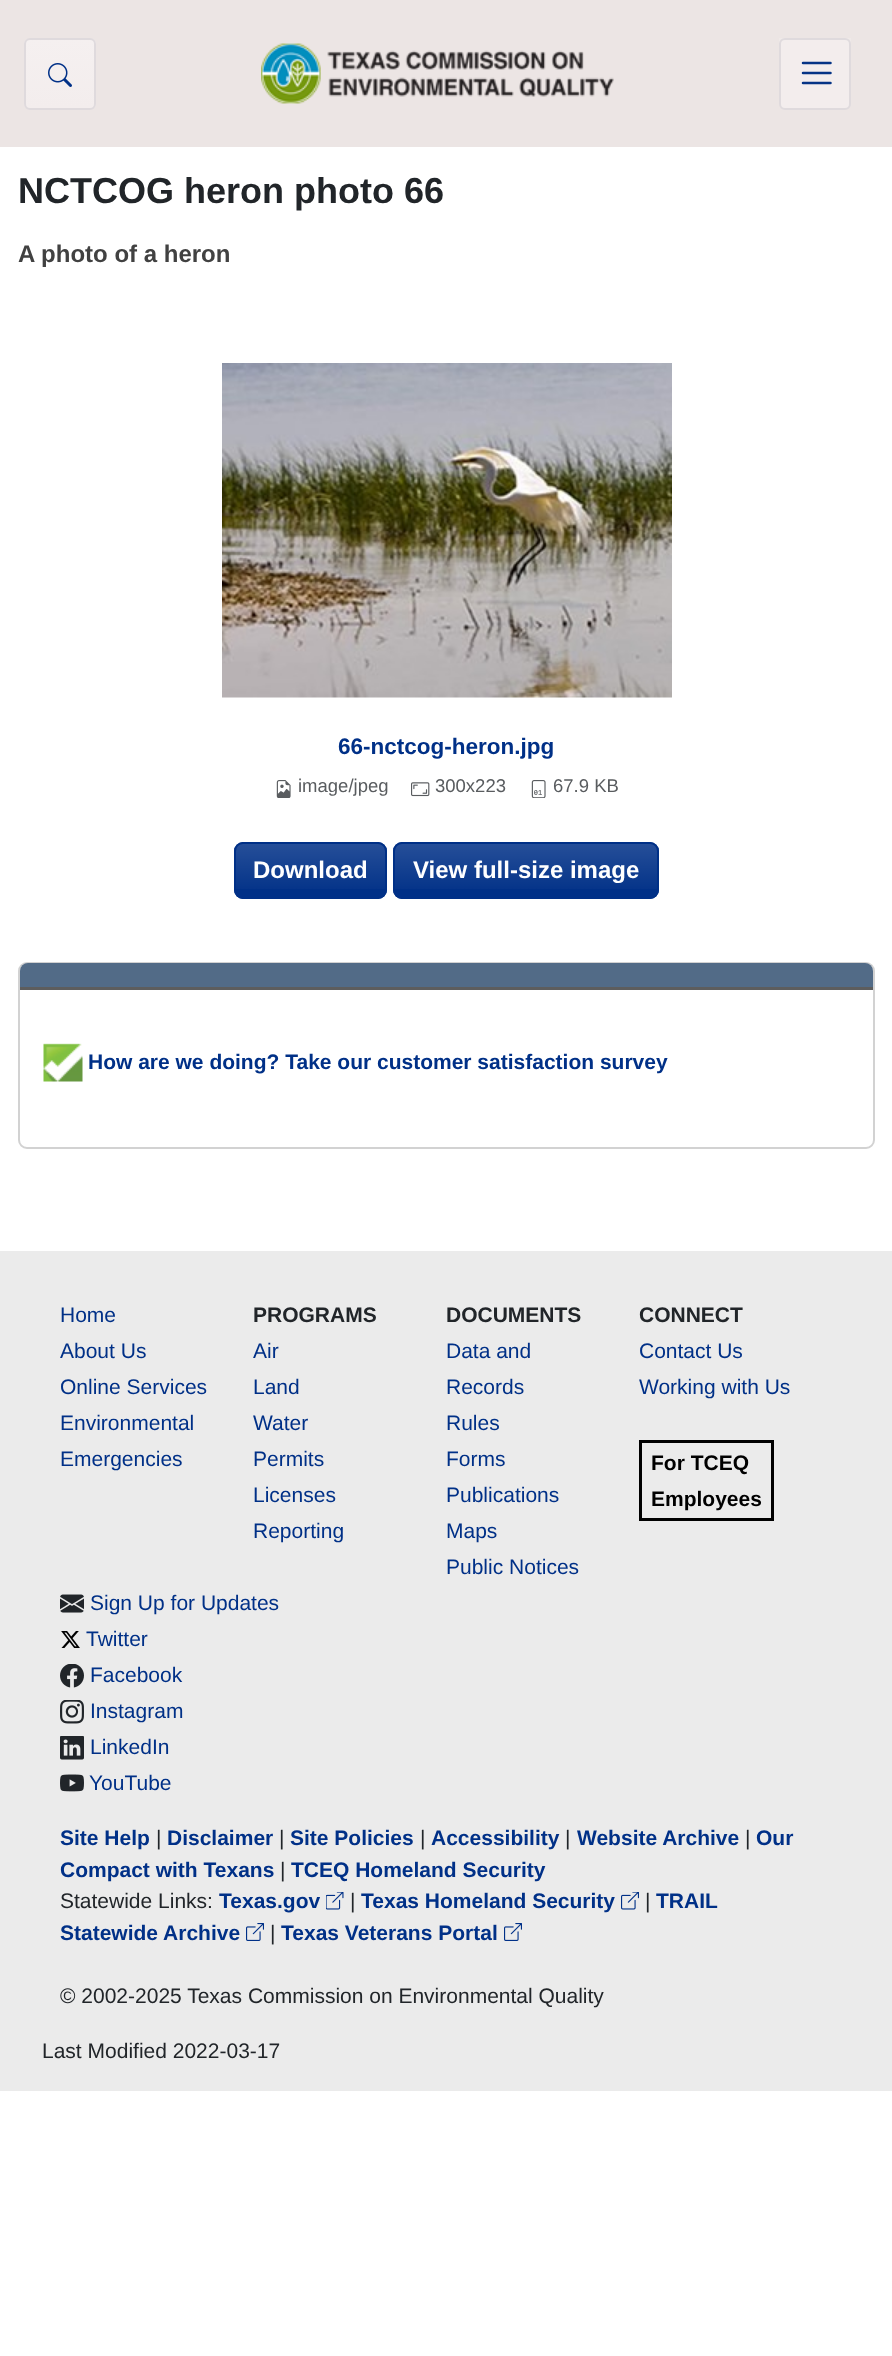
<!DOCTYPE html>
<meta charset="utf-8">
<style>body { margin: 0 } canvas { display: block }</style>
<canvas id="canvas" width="892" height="2356"></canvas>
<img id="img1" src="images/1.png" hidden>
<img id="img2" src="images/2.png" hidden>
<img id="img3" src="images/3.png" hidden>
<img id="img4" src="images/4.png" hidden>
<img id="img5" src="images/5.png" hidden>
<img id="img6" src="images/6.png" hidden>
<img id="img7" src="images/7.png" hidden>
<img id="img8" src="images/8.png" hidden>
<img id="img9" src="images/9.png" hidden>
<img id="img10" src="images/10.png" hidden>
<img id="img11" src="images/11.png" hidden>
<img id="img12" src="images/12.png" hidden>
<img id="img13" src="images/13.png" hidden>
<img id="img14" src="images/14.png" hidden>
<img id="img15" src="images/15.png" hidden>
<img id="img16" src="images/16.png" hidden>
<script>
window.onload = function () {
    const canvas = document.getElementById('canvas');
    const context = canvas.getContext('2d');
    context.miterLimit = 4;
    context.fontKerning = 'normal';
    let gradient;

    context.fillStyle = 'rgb(255, 255, 255)';
    context.fillRect(0, 0, 892, 2356);
    context.fillStyle = 'rgb(236, 229, 228)';
    context.fillRect(0, 0, 892, 147);
    context.save();
    context.beginPath();
    context.roundRect(24, 38, 72, 72, 6);
    context.clip();
    gradient = context.createLinearGradient(60, 39, 60, 108);
    gradient.addColorStop(0, 'rgb(245, 240, 240)');
    gradient.addColorStop(1, 'rgb(243, 237, 237)');
    context.fillStyle = gradient;
    context.fillRect(24, 39, 72, 69);
    context.restore();
    context.beginPath();
    context.roundRect(25, 39, 70, 70, 5);
    context.strokeStyle = 'rgb(223, 218, 221)';
    context.lineWidth = 2;
    context.stroke();
    context.drawImage(document.getElementById('img1'), 48, 63, 24, 24);
    context.drawImage(document.getElementById('img2'), 261, 43, 353, 61);
    gradient = context.createLinearGradient(815, 37, 815, 110);
    gradient.addColorStop(0, 'rgb(239, 233, 232)');
    gradient.addColorStop(1, 'rgb(236, 229, 228)');
    context.fillStyle = gradient;
    context.fillRect(779, 38, 72, 26);
    context.fillStyle = 'rgb(243, 237, 237)';
    context.beginPath();
    context.roundRect(780, 39, 70, 70, 5);
    context.fill();
    context.stroke();
    context.beginPath();
    context.moveTo(803, 63);
    context.lineTo(830.5, 63);
    context.moveTo(803, 73);
    context.lineTo(830.5, 73);
    context.moveTo(803, 83);
    context.lineTo(830.5, 83);
    context.strokeStyle = 'rgb(5, 51, 133)';
    context.lineWidth = 2.5;
    context.lineCap = 'round';
    context.stroke();
    context.drawImage(document.getElementById('img3'), 222, 363, 450, 335);
    context.drawImage(document.getElementById('img4'), 276, 780, 15, 18);
    context.drawImage(document.getElementById('img5'), 411, 782, 19, 15);
    context.drawImage(document.getElementById('img6'), 531, 780, 15, 18);
    context.fillStyle = 'rgb(0, 48, 135)';
    context.beginPath();
    context.roundRect(234, 842, 153, 57, 9);
    context.fill();
    context.save();
    context.beginPath();
    context.roundRect(234, 842, 153, 57, 9);
    context.clip();
    gradient = context.createLinearGradient(311, 843, 311, 897);
    gradient.addColorStop(0, 'rgba(255, 255, 255, 0.15)');
    gradient.addColorStop(1, 'rgba(255, 255, 255, 0)');
    context.fillStyle = gradient;
    context.fillRect(234, 843, 153, 46);
    context.restore();
    context.beginPath();
    context.roundRect(235, 843, 151, 55, 8);
    context.strokeStyle = 'rgb(0, 48, 135)';
    context.lineWidth = 2;
    context.stroke();
    context.beginPath();
    context.roundRect(393, 842, 266, 57, 9);
    context.fill();
    context.save();
    context.beginPath();
    context.roundRect(393, 842, 266, 57, 9);
    context.clip();
    gradient = context.createLinearGradient(526, 843, 526, 897);
    gradient.addColorStop(0, 'rgba(255, 255, 255, 0.15)');
    gradient.addColorStop(1, 'rgba(255, 255, 255, 0)');
    context.fillStyle = gradient;
    context.fillRect(393, 843, 266, 46);
    context.restore();
    context.beginPath();
    context.roundRect(394, 843, 264, 55, 8);
    context.stroke();
    context.beginPath();
    context.roundRect(19, 963, 855, 185, 8);
    context.strokeStyle = 'rgb(210, 210, 210)';
    context.stroke();
    context.fillStyle = 'rgb(82, 107, 135)';
    context.beginPath();
    context.roundRect(20, 963, 853, 27, [8, 8, 0, 0]);
    context.fill();
    context.fillStyle = 'rgb(93, 93, 93)';
    context.fillRect(20, 987, 853, 3);
    context.drawImage(document.getElementById('img7'), 43, 1043, 40, 39);
    context.fillStyle = 'rgb(235, 235, 235)';
    context.fillRect(0, 1251, 892, 840);
    context.strokeStyle = 'rgb(0, 0, 0)';
    context.lineWidth = 3;
    context.strokeRect(640.5, 1441.5, 132, 78);
    context.drawImage(document.getElementById('img8'), 60, 1594, 24, 19);
    context.drawImage(document.getElementById('img9'), 61, 1631, 19, 17);
    context.drawImage(document.getElementById('img10'), 60, 1664, 24, 24);
    context.drawImage(document.getElementById('img11'), 60, 1700, 24, 24);
    context.drawImage(document.getElementById('img12'), 60, 1736, 24, 24);
    context.drawImage(document.getElementById('img13'), 60, 1774, 24, 18);
    context.drawImage(document.getElementById('img14'), 326, 1892, 18, 18);
    context.drawImage(document.getElementById('img15'), 621, 1892, 18, 18);
    context.drawImage(document.getElementById('img16'), 246, 1923, 18, 18);
    context.drawImage(document.getElementById('img16'), 504, 1923, 18, 18);
    context.font = 'bold 36px Liberation Sans';
    context.fillStyle = 'rgb(33, 37, 41)';
    context.fillText('NCTCOG heron photo 66', 18, 203);
    context.font = 'bold 24px Liberation Sans';
    context.fillStyle = 'rgb(65, 65, 65)';
    context.fillText('A photo of a heron', 18, 262);
    context.font = 'bold 22.5px Liberation Sans';
    context.fillStyle = 'rgb(0, 48, 135)';
    context.fillText('66-nctcog-heron.jpg', 338, 754);
    context.font = '18.5px Liberation Sans';
    context.fillStyle = 'rgb(89, 92, 95)';
    context.fillText('image/jpeg', 298, 792);
    context.fillText('300x223', 435, 792);
    context.fillText('67.9 KB', 553, 792);
    context.font = 'bold 24px Liberation Sans';
    context.fillStyle = 'rgb(255, 255, 255)';
    context.fillText('Download', 253, 878);
    context.fillText('View full-size image', 413, 878);
    context.font = 'bold 21px Liberation Sans';
    context.fillStyle = 'rgb(0, 48, 135)';
    context.fillText('How are we doing? Take our customer satisfaction survey', 88, 1069);
    context.font = '21px Liberation Sans';
    context.fillText('Home', 60, 1322);
    context.fillText('About Us', 60, 1358);
    context.fillText('Online Services', 60, 1394);
    context.fillText('Environmental', 60, 1430);
    context.fillText('Emergencies', 60, 1466);
    context.font = 'bold 21px Liberation Sans';
    context.fillStyle = 'rgb(33, 37, 41)';
    context.fillText('PROGRAMS', 253, 1322);
    context.font = '21px Liberation Sans';
    context.fillStyle = 'rgb(0, 48, 135)';
    context.fillText('Air', 253, 1358);
    context.fillText('Land', 253, 1394);
    context.fillText('Water', 253, 1430);
    context.fillText('Permits', 253, 1466);
    context.fillText('Licenses', 253, 1502);
    context.fillText('Reporting', 253, 1538);
    context.font = 'bold 21px Liberation Sans';
    context.fillStyle = 'rgb(33, 37, 41)';
    context.fillText('DOCUMENTS', 446, 1322);
    context.font = '21px Liberation Sans';
    context.fillStyle = 'rgb(0, 48, 135)';
    context.fillText('Data and', 446, 1358);
    context.fillText('Records', 446, 1394);
    context.fillText('Rules', 446, 1430);
    context.fillText('Forms', 446, 1466);
    context.fillText('Publications', 446, 1502);
    context.fillText('Maps', 446, 1538);
    context.fillText('Public Notices', 446, 1574);
    context.font = 'bold 21px Liberation Sans';
    context.fillStyle = 'rgb(33, 37, 41)';
    context.fillText('CONNECT', 639, 1322);
    context.font = '21px Liberation Sans';
    context.fillStyle = 'rgb(0, 48, 135)';
    context.fillText('Contact Us', 639, 1358);
    context.fillText('Working with Us', 639, 1394);
    context.font = 'bold 21px Liberation Sans';
    context.fillStyle = 'rgb(0, 0, 0)';
    context.fillText('For TCEQ', 651, 1470);
    context.fillText('Employees', 651, 1506);
    context.font = '21px Liberation Sans';
    context.fillStyle = 'rgb(0, 48, 135)';
    context.fillText('Sign Up for Updates', 90, 1610);
    context.fillText('Twitter', 86, 1646);
    context.fillText('Facebook', 90, 1682);
    context.fillText('Instagram', 90, 1718);
    context.fillText('LinkedIn', 90, 1754);
    context.fillText('YouTube', 89, 1790);
    context.font = 'bold 21px Liberation Sans';
    context.fillText('Site Help', 60, 1845);
    context.font = '21px Liberation Sans';
    context.fillStyle = 'rgb(33, 37, 41)';
    context.fillText('|', 156, 1845);
    context.font = 'bold 21px Liberation Sans';
    context.fillStyle = 'rgb(0, 48, 135)';
    context.fillText('Disclaimer', 167, 1845);
    context.font = '21px Liberation Sans';
    context.fillStyle = 'rgb(33, 37, 41)';
    context.fillText('|', 279, 1845);
    context.font = 'bold 21px Liberation Sans';
    context.fillStyle = 'rgb(0, 48, 135)';
    context.fillText('Site Policies', 290, 1845);
    context.font = '21px Liberation Sans';
    context.fillStyle = 'rgb(33, 37, 41)';
    context.fillText('|', 420, 1845);
    context.font = 'bold 21px Liberation Sans';
    context.fillStyle = 'rgb(0, 48, 135)';
    context.fillText('Accessibility', 431, 1845);
    context.font = '21px Liberation Sans';
    context.fillStyle = 'rgb(33, 37, 41)';
    context.fillText('|', 565, 1845);
    context.font = 'bold 21px Liberation Sans';
    context.fillStyle = 'rgb(0, 48, 135)';
    context.fillText('Website Archive', 577, 1845);
    context.font = '21px Liberation Sans';
    context.fillStyle = 'rgb(33, 37, 41)';
    context.fillText('|', 745, 1845);
    context.font = 'bold 21px Liberation Sans';
    context.fillStyle = 'rgb(0, 48, 135)';
    context.fillText('Our', 756, 1845);
    context.fillText('Compact with Texans', 60, 1877);
    context.font = '21px Liberation Sans';
    context.fillStyle = 'rgb(33, 37, 41)';
    context.fillText('|', 280, 1877);
    context.font = 'bold 21px Liberation Sans';
    context.fillStyle = 'rgb(0, 48, 135)';
    context.fillText('TCEQ Homeland Security', 291, 1877);
    context.font = '21px Liberation Sans';
    context.fillStyle = 'rgb(33, 37, 41)';
    context.fillText('Statewide Links:', 60, 1908);
    context.font = 'bold 21px Liberation Sans';
    context.fillStyle = 'rgb(0, 48, 135)';
    context.fillText('Texas.gov', 219, 1908);
    context.font = '21px Liberation Sans';
    context.fillStyle = 'rgb(33, 37, 41)';
    context.fillText('|', 350, 1908);
    context.font = 'bold 21px Liberation Sans';
    context.fillStyle = 'rgb(0, 48, 135)';
    context.fillText('Texas Homeland Security', 361, 1908);
    context.font = '21px Liberation Sans';
    context.fillStyle = 'rgb(33, 37, 41)';
    context.fillText('|', 645, 1908);
    context.font = 'bold 21px Liberation Sans';
    context.fillStyle = 'rgb(0, 48, 135)';
    context.fillText('TRAIL', 656, 1908);
    context.fillText('Statewide Archive', 60, 1940);
    context.font = '21px Liberation Sans';
    context.fillStyle = 'rgb(33, 37, 41)';
    context.fillText('|', 270, 1940);
    context.font = 'bold 21px Liberation Sans';
    context.fillStyle = 'rgb(0, 48, 135)';
    context.fillText('Texas Veterans Portal', 281, 1940);
    context.font = '21px Liberation Sans';
    context.fillStyle = 'rgb(33, 37, 41)';
    context.fillText('© 2002-2025 Texas Commission on Environmental Quality', 60, 2003);
    context.fillText('Last Modified 2022-03-17', 42, 2058);
};
</script>
